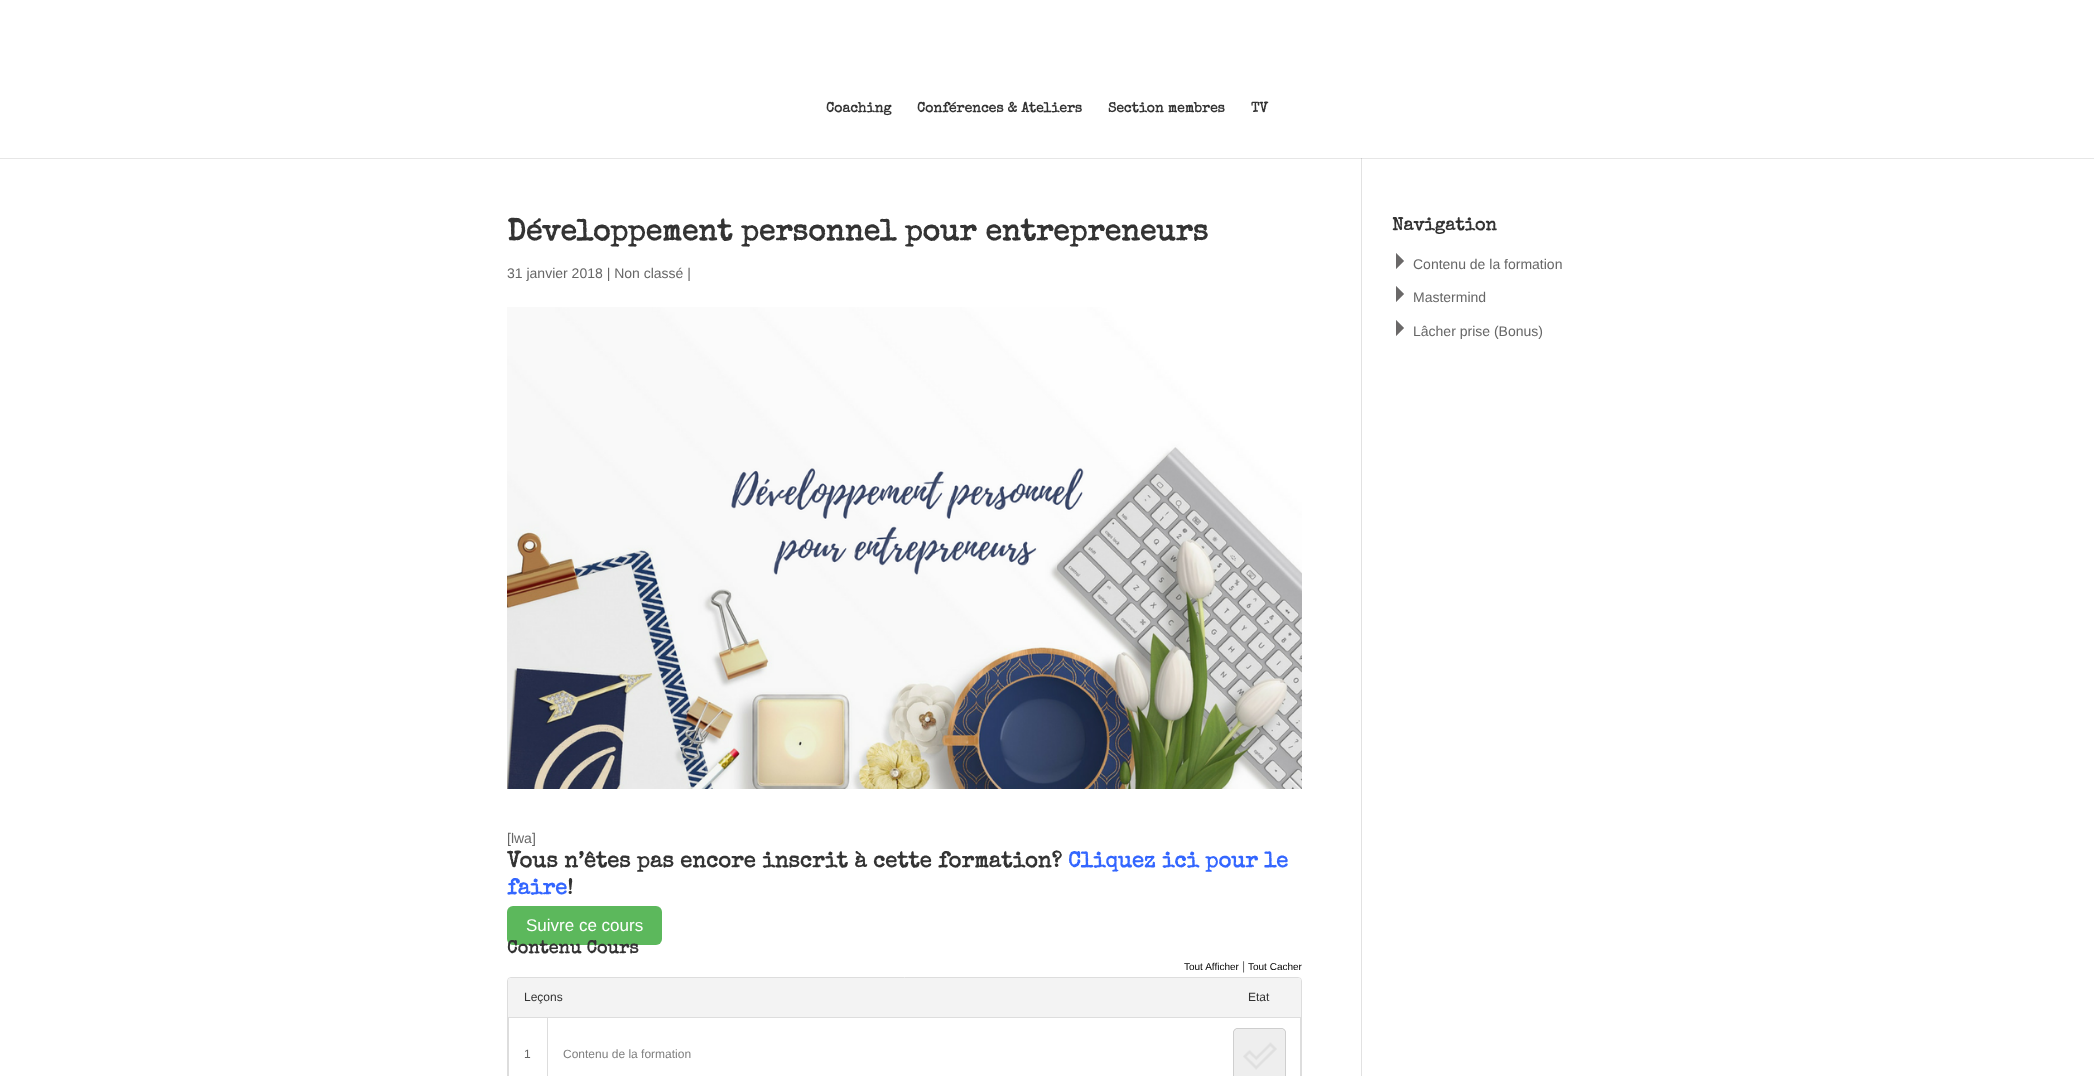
<!DOCTYPE html>
<meta charset="utf-8">
<style>body { margin: 0 } canvas { display: block }</style>
<canvas id="canvas" width="2094" height="1076"></canvas>
<img id="img1" src="images/1.png" hidden>
<img id="img2" src="images/2.png" hidden>
<img id="img3" src="images/3.png" hidden>
<script>
window.onload = function () {
    const canvas = document.getElementById('canvas');
    const context = canvas.getContext('2d');
    context.miterLimit = 4;
    context.fontKerning = 'normal';

    context.fillStyle = 'rgb(255, 255, 255)';
    context.fillRect(0, 0, 2094, 1076);
    context.fillStyle = 'rgb(230, 230, 230)';
    context.fillRect(0, 158, 2094, 1);
    context.fillStyle = 'rgb(226, 226, 226)';
    context.fillRect(1361, 158, 1, 918);
    context.fillStyle = 'rgb(203, 203, 203)';
    context.fillRect(1361, 158, 1, 1);
    context.drawImage(document.getElementById('img1'), 507, 307, 795, 482);
    context.fillStyle = 'rgb(92, 184, 92)';
    context.beginPath();
    context.roundRect(507, 906, 155, 39, 6);
    context.fill();
    context.beginPath();
    context.roundRect(507.5, 977.5, 794, 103, 3.5);
    context.strokeStyle = 'rgb(221, 221, 221)';
    context.stroke();
    context.fillStyle = 'rgb(243, 243, 243)';
    context.beginPath();
    context.roundRect(508, 978, 793, 39, [3, 3, 0, 0]);
    context.fill();
    context.strokeRect(508.5, 1017.5, 792, 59);
    context.fillStyle = 'rgb(221, 221, 221)';
    context.fillRect(547, 1017, 1, 59);
    context.drawImage(document.getElementById('img2'), 1233, 1028, 53, 48);
    context.drawImage(document.getElementById('img3'), 1396, 253, 8, 16);
    context.drawImage(document.getElementById('img3'), 1396, 286, 8, 16);
    context.drawImage(document.getElementById('img3'), 1396, 320, 8, 16);
    context.font = 'bold 14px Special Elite';
    context.fillStyle = 'rgb(51, 51, 51)';
    context.fillText('Coaching', 826, 112);
    context.fillText('Conférences & Ateliers', 917, 112);
    context.fillText('Section membres', 1108, 112);
    context.fillText('TV', 1251, 112);
    context.font = 'bold 30px Special Elite';
    context.fillText('Développement personnel pour entrepreneurs', 507, 240);
    context.font = '14px Liberation Sans';
    context.fillStyle = 'rgb(102, 102, 102)';
    context.fillText('31 janvier 2018 | Non classé |', 507, 278);
    context.fillText('[lwa]', 507, 843);
    context.font = 'bold 22px Special Elite';
    context.fillStyle = 'rgb(51, 51, 51)';
    context.fillText('Vous n’êtes pas encore inscrit à cette formation?', 507, 867);
    context.fillStyle = 'rgb(51, 102, 255)';
    context.fillText('Cliquez ici pour le', 1068, 867);
    context.fillText('faire', 507, 894);
    context.fillStyle = 'rgb(51, 51, 51)';
    context.fillText('!', 567, 894);
    context.font = '17px Liberation Sans';
    context.fillStyle = 'rgb(255, 255, 255)';
    context.fillText('Suivre ce cours', 526, 931);
    context.font = 'bold 18px Special Elite';
    context.fillStyle = 'rgb(51, 51, 51)';
    context.fillText('Contenu Cours', 507, 953);
    context.font = '10px Liberation Sans';
    context.fillStyle = 'rgb(0, 0, 0)';
    context.fillText('Tout Afficher', 1184, 970);
    context.font = '12px Liberation Sans';
    context.fillStyle = 'rgb(102, 102, 102)';
    context.fillText('|', 1242, 970);
    context.font = '10px Liberation Sans';
    context.fillStyle = 'rgb(0, 0, 0)';
    context.fillText('Tout Cacher', 1248, 970);
    context.font = '12px Liberation Sans';
    context.fillStyle = 'rgb(51, 51, 51)';
    context.fillText('Leçons', 524, 1001);
    context.fillText('Etat', 1248, 1001);
    context.fillStyle = 'rgb(102, 102, 102)';
    context.fillText('1', 524, 1058);
    context.fillStyle = 'rgb(128, 128, 128)';
    context.fillText('Contenu de la formation', 563, 1058);
    context.font = 'bold 18px Special Elite';
    context.fillStyle = 'rgb(51, 51, 51)';
    context.fillText('Navigation', 1392, 230);
    context.font = '14px Liberation Sans';
    context.fillStyle = 'rgb(102, 102, 102)';
    context.fillText('Contenu de la formation', 1413, 269);
    context.fillText('Mastermind', 1413, 302);
    context.fillText('Lâcher prise (Bonus)', 1413, 336);
};
</script>
